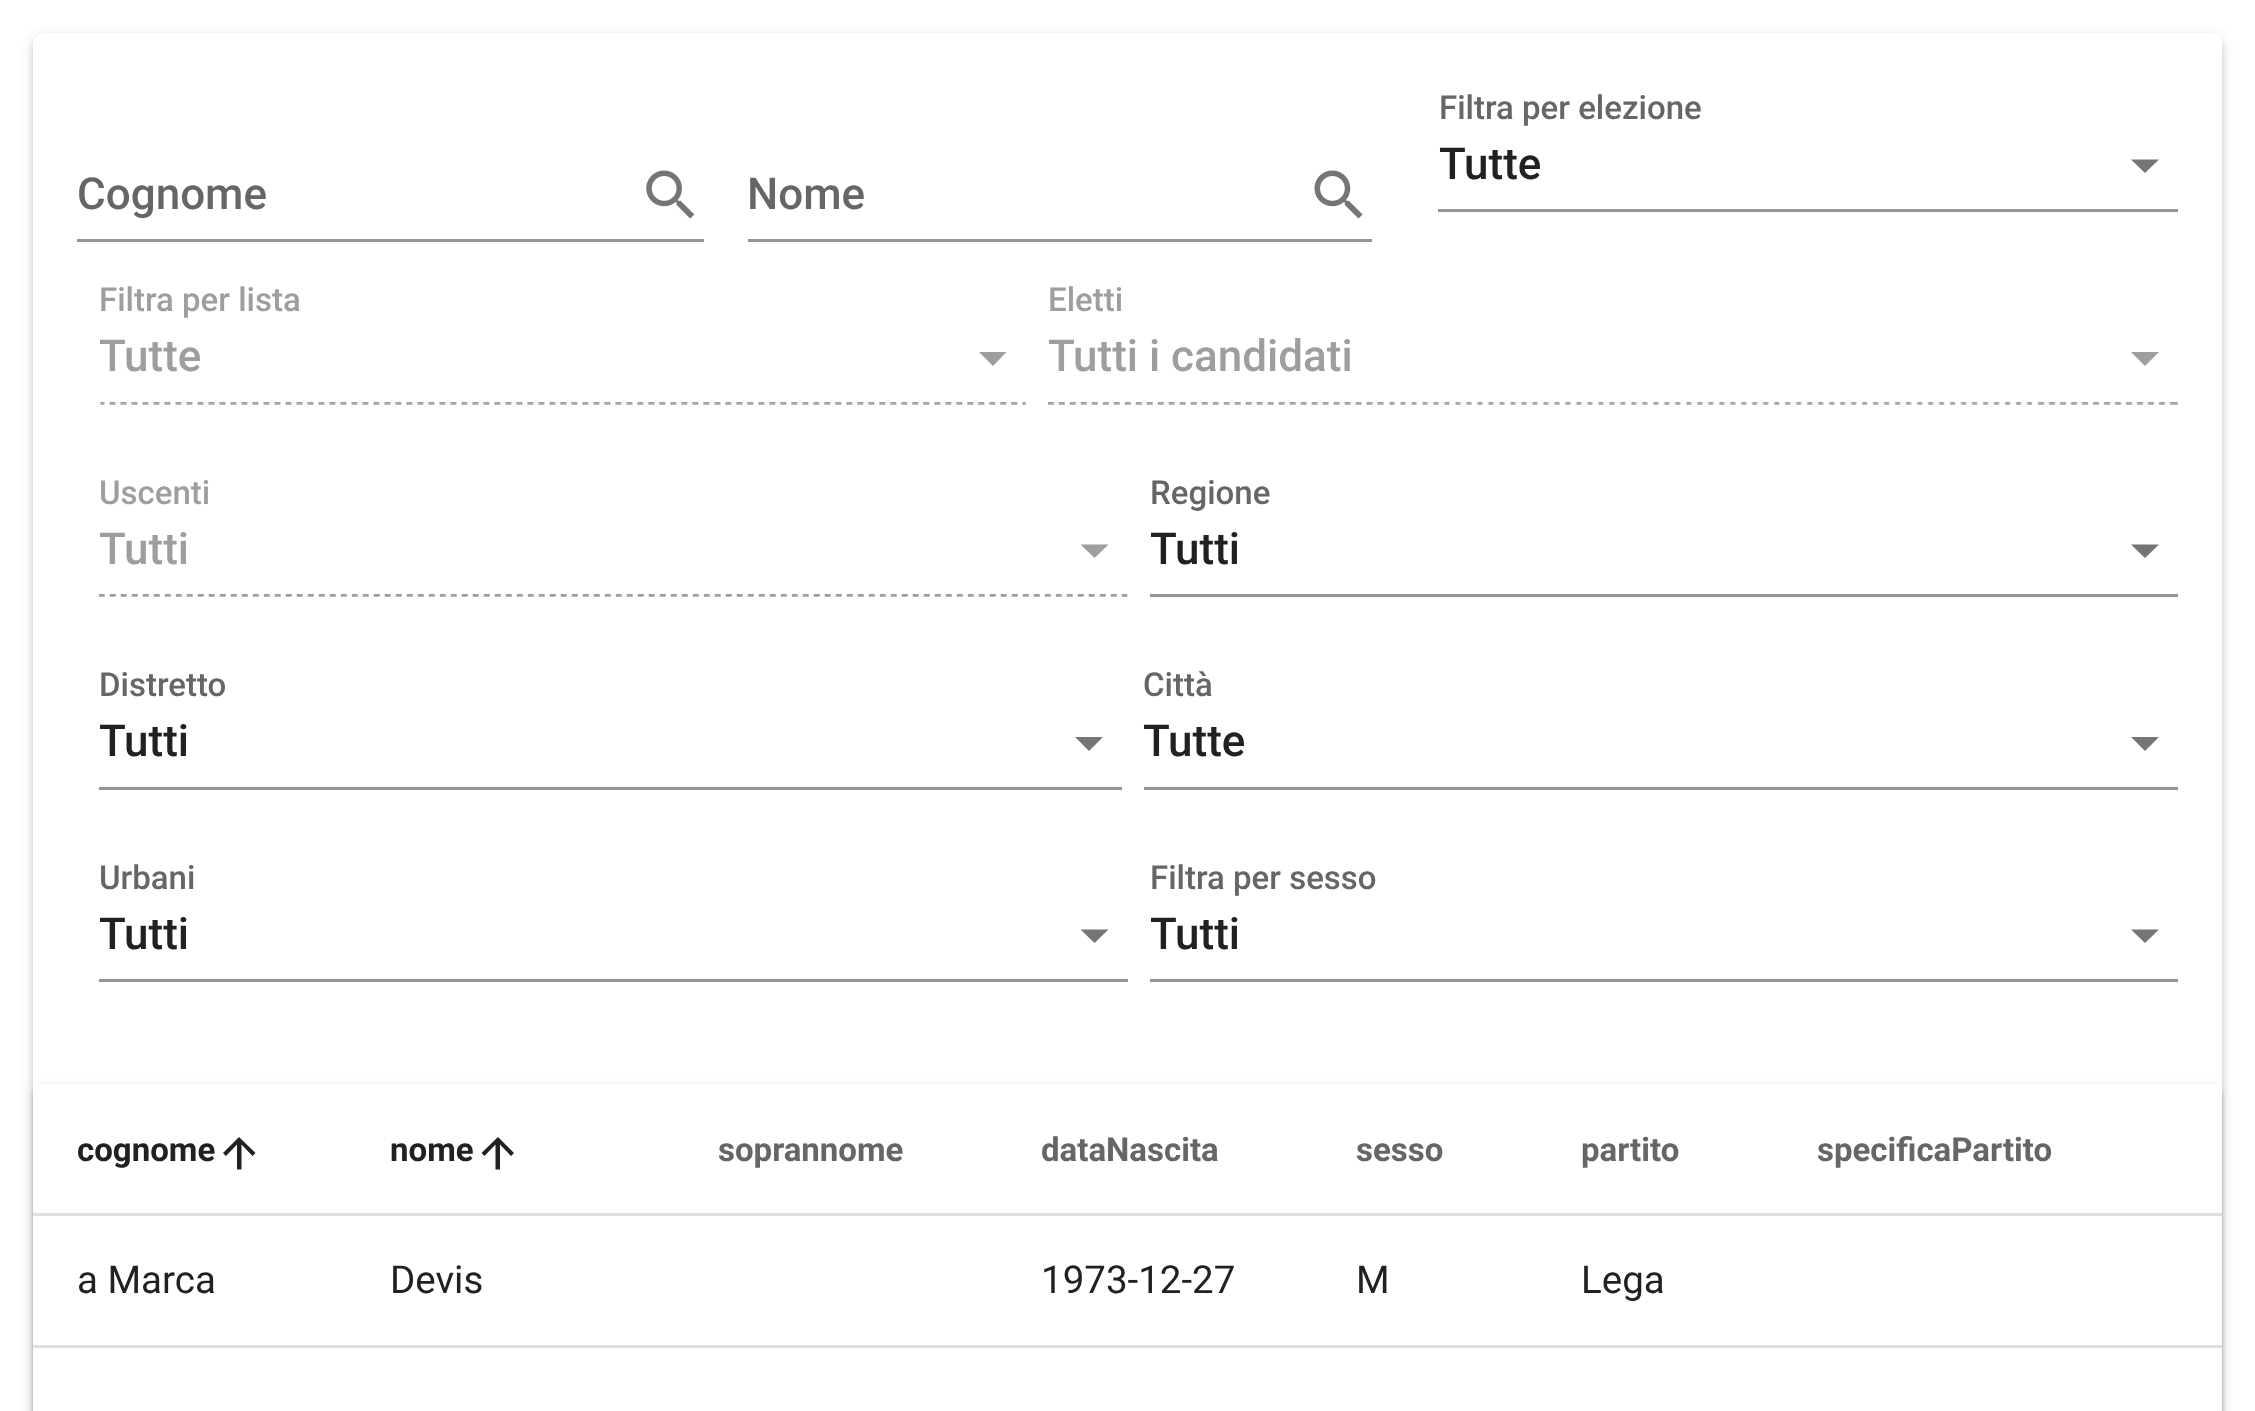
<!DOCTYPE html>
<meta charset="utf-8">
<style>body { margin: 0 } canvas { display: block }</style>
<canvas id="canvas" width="2255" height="1411"></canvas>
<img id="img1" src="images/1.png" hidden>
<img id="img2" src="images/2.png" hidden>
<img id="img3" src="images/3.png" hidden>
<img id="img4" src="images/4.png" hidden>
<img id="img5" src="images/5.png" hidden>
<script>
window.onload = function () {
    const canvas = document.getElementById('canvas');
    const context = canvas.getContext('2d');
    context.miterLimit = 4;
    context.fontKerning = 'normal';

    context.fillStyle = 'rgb(255, 255, 255)';
    context.fillRect(0, 0, 2255, 1411);
    context.fillStyle = 'rgba(0, 0, 0, 0.12)';
    context.filter = 'blur(7px)';
    context.beginPath();
    context.roundRect(33, 36, 2189, 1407, 11);
    context.fill();
    context.filter = 'none';
    context.fillStyle = 'rgba(0, 0, 0, 0.14)';
    context.filter = 'blur(3px)';
    context.beginPath();
    context.roundRect(33, 39, 2189, 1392, 11);
    context.fill();
    context.filter = 'none';
    context.fillStyle = 'rgb(255, 255, 255)';
    context.beginPath();
    context.roundRect(33, 33, 2189, 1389, 11);
    context.fill();
    context.fillStyle = 'rgb(117, 117, 117)';
    context.beginPath();
    context.moveTo(2131, 159.5);
    context.lineTo(2145, 173);
    context.lineTo(2159, 159.5);
    context.closePath();
    context.fill();
    context.fillStyle = 'rgb(148, 148, 148)';
    context.fillRect(1438, 209, 740, 3);
    context.drawImage(document.getElementById('img1'), 646, 170, 49, 49);
    context.fillRect(77, 239, 627, 3);
    context.drawImage(document.getElementById('img2'), 1314, 170, 49, 49);
    context.fillRect(748, 239, 624, 3);
    context.fillStyle = 'rgb(158, 158, 158)';
    context.beginPath();
    context.moveTo(979, 352);
    context.lineTo(993, 366);
    context.lineTo(1006.5, 352);
    context.closePath();
    context.fill();
    context.drawImage(document.getElementById('img3'), 100, 402, 926, 3);
    context.beginPath();
    context.moveTo(2131, 352);
    context.lineTo(2145, 366);
    context.lineTo(2159, 352);
    context.closePath();
    context.fill();
    context.drawImage(document.getElementById('img4'), 1048, 402, 1130, 3);
    context.beginPath();
    context.moveTo(1080.5, 544.5);
    context.lineTo(1094.5, 558);
    context.lineTo(1108.5, 544.5);
    context.closePath();
    context.fill();
    context.drawImage(document.getElementById('img5'), 99, 594, 1029, 3);
    context.fillStyle = 'rgb(117, 117, 117)';
    context.beginPath();
    context.moveTo(2131, 544.5);
    context.lineTo(2145, 558);
    context.lineTo(2159, 544.5);
    context.closePath();
    context.fill();
    context.fillStyle = 'rgb(148, 148, 148)';
    context.fillRect(1150, 594, 1028, 3);
    context.fillStyle = 'rgb(117, 117, 117)';
    context.beginPath();
    context.moveTo(1075, 737);
    context.lineTo(1089, 751);
    context.lineTo(1103, 737);
    context.closePath();
    context.fill();
    context.fillStyle = 'rgb(148, 148, 148)';
    context.fillRect(99, 787, 1023, 3);
    context.fillStyle = 'rgb(117, 117, 117)';
    context.beginPath();
    context.moveTo(2131, 737);
    context.lineTo(2145, 751);
    context.lineTo(2159, 737);
    context.closePath();
    context.fill();
    context.fillStyle = 'rgb(148, 148, 148)';
    context.fillRect(1144, 787, 1034, 3);
    context.fillStyle = 'rgb(117, 117, 117)';
    context.beginPath();
    context.moveTo(1080.5, 929.5);
    context.lineTo(1094.5, 943);
    context.lineTo(1108.5, 929.5);
    context.closePath();
    context.fill();
    context.fillStyle = 'rgb(148, 148, 148)';
    context.fillRect(99, 979, 1029, 3);
    context.fillStyle = 'rgb(117, 117, 117)';
    context.beginPath();
    context.moveTo(2131, 929.5);
    context.lineTo(2145, 943);
    context.lineTo(2159, 929.5);
    context.closePath();
    context.fill();
    context.fillStyle = 'rgb(148, 148, 148)';
    context.fillRect(1150, 979, 1028, 3);
    context.fillStyle = 'rgba(0, 0, 0, 0.12)';
    context.filter = 'blur(4px)';
    context.beginPath();
    context.roundRect(33, 1086, 2189, 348, 11);
    context.fill();
    context.filter = 'none';
    context.fillStyle = 'rgba(0, 0, 0, 0.14)';
    context.filter = 'blur(1.5px)';
    context.beginPath();
    context.roundRect(33, 1086, 2189, 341, 11);
    context.fill();
    context.filter = 'none';
    context.fillStyle = 'rgb(255, 255, 255)';
    context.fillRect(33, 1084, 2189, 327);
    context.fillStyle = 'rgb(224, 224, 224)';
    context.fillRect(33, 1213, 2189, 3);
    context.fillStyle = 'rgb(33, 33, 33)';
    context.beginPath();
    context.moveTo(241.5, 1169.5);
    context.lineTo(237, 1169.5);
    context.lineTo(237, 1144.5);
    context.lineTo(226, 1156);
    context.lineTo(223, 1153);
    context.lineTo(239, 1137);
    context.lineTo(255.5, 1153);
    context.lineTo(252.5, 1156);
    context.lineTo(241.5, 1144.5);
    context.closePath();
    context.fill();
    context.beginPath();
    context.moveTo(500, 1169.5);
    context.lineTo(495.5, 1169.5);
    context.lineTo(495.5, 1144.5);
    context.lineTo(484.5, 1156);
    context.lineTo(481.5, 1153);
    context.lineTo(498, 1137);
    context.lineTo(514, 1153);
    context.lineTo(511, 1156);
    context.lineTo(500, 1144.5);
    context.closePath();
    context.fill();
    context.fillStyle = 'rgb(224, 224, 224)';
    context.fillRect(33, 1345, 2189, 3);
    context.font = '500 33px Roboto';
    context.fillStyle = 'rgb(102, 102, 102)';
    context.fillText('Filtra per elezione', 1439, 119);
    context.font = '500 44px Roboto';
    context.fillStyle = 'rgb(33, 33, 33)';
    context.fillText('Tutte', 1439, 179);
    context.fillStyle = 'rgb(102, 102, 102)';
    context.fillText('Cognome', 77, 209);
    context.fillText('Nome', 747, 209);
    context.font = '500 33px Roboto';
    context.fillStyle = 'rgb(158, 158, 158)';
    context.fillText('Filtra per lista', 99, 311);
    context.font = '500 44px Roboto';
    context.fillText('Tutte', 99, 371);
    context.font = '500 33px Roboto';
    context.fillText('Eletti', 1048, 311);
    context.font = '500 44px Roboto';
    context.fillText('Tutti i candidati', 1048, 371);
    context.font = '500 33px Roboto';
    context.fillText('Uscenti', 99, 504);
    context.font = '500 44px Roboto';
    context.fillText('Tutti', 99, 564);
    context.font = '500 33px Roboto';
    context.fillStyle = 'rgb(102, 102, 102)';
    context.fillText('Regione', 1150, 504);
    context.font = '500 44px Roboto';
    context.fillStyle = 'rgb(33, 33, 33)';
    context.fillText('Tutti', 1150, 564);
    context.font = '500 33px Roboto';
    context.fillStyle = 'rgb(102, 102, 102)';
    context.fillText('Distretto', 99, 696);
    context.font = '500 44px Roboto';
    context.fillStyle = 'rgb(33, 33, 33)';
    context.fillText('Tutti', 99, 756);
    context.font = '500 33px Roboto';
    context.fillStyle = 'rgb(102, 102, 102)';
    context.fillText('Città', 1143, 696);
    context.font = '500 44px Roboto';
    context.fillStyle = 'rgb(33, 33, 33)';
    context.fillText('Tutte', 1143, 756);
    context.font = '500 33px Roboto';
    context.fillStyle = 'rgb(102, 102, 102)';
    context.fillText('Urbani', 99, 889);
    context.font = '500 44px Roboto';
    context.fillStyle = 'rgb(33, 33, 33)';
    context.fillText('Tutti', 99, 949);
    context.font = '500 33px Roboto';
    context.fillStyle = 'rgb(102, 102, 102)';
    context.fillText('Filtra per sesso', 1150, 889);
    context.font = '500 44px Roboto';
    context.fillStyle = 'rgb(33, 33, 33)';
    context.fillText('Tutti', 1150, 949);
    context.font = 'bold 33px Roboto';
    context.fillText('cognome', 77, 1161);
    context.fillText('nome', 390, 1161);
    context.fillStyle = 'rgb(102, 102, 102)';
    context.fillText('soprannome', 718, 1161);
    context.fillText('dataNascita', 1041, 1161);
    context.fillText('sesso', 1356, 1161);
    context.fillText('partito', 1581, 1161);
    context.fillText('specificaPartito', 1817, 1161);
    context.font = '38.5px Roboto';
    context.fillStyle = 'rgb(33, 33, 33)';
    context.fillText('a Marca', 77, 1293);
    context.fillText('Devis', 390, 1293);
    context.fillText('1973-12-27', 1041, 1293);
    context.fillText('M', 1356, 1293);
    context.fillText('Lega', 1581, 1293);
};
</script>
